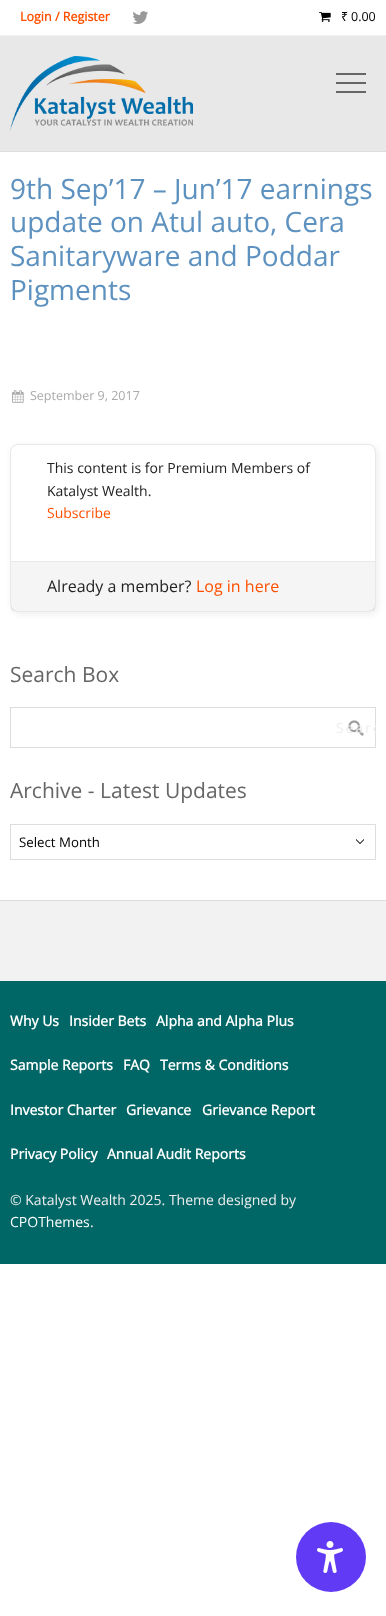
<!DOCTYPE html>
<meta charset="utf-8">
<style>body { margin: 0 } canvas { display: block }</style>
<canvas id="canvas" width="386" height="1616"></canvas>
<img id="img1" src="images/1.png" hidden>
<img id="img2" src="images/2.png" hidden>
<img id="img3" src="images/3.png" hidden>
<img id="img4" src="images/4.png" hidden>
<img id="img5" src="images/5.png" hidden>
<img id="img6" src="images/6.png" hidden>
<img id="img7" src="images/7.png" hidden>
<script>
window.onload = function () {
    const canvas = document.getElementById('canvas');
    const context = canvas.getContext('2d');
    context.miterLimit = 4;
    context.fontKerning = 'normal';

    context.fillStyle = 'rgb(255, 255, 255)';
    context.fillRect(0, 0, 386, 1616);
    context.fillStyle = 'rgb(240, 240, 240)';
    context.fillRect(0, 35, 386, 1);
    context.drawImage(document.getElementById('img1'), 132, 11, 16, 13);
    context.drawImage(document.getElementById('img2'), 319, 12, 12, 10);
    context.fillStyle = 'rgb(232, 232, 232)';
    context.fillRect(0, 36, 386, 115);
    context.fillStyle = 'rgb(221, 221, 221)';
    context.fillRect(0, 151, 386, 1);
    context.drawImage(document.getElementById('img3'), 10, 56, 183, 75);
    context.fillStyle = 'rgb(102, 102, 102)';
    context.fillRect(336, 73, 30, 2);
    context.fillRect(336, 91, 30, 2);
    context.fillRect(336, 82, 30, 2);
    context.drawImage(document.getElementById('img4'), 12, 390, 12, 13);
    context.fillStyle = 'rgba(0, 0, 0, 0.07)';
    context.filter = 'blur(3.5px)';
    context.beginPath();
    context.roundRect(12, 446, 366, 168, 8);
    context.fill();
    context.filter = 'none';
    context.fillStyle = 'rgb(255, 255, 255)';
    context.beginPath();
    context.roundRect(10.5, 444.5, 365, 167, 7.5);
    context.fill();
    context.strokeStyle = 'rgb(232, 232, 232)';
    context.stroke();
    context.fillStyle = 'rgba(0, 0, 0, 0.04)';
    context.fillRect(11, 562, 364, 49);
    context.fillStyle = 'rgb(232, 232, 232)';
    context.fillRect(11, 561, 364, 1);
    context.strokeStyle = 'rgb(221, 221, 221)';
    context.strokeRect(10.5, 707.5, 365, 40);
    context.drawImage(document.getElementById('img5'), 348, 720, 16, 16);
    context.drawImage(document.getElementById('img6'), 356, 839, 8, 5);
    context.strokeRect(10.5, 824.5, 365, 35);
    context.fillStyle = 'rgb(242, 242, 242)';
    context.fillRect(0, 901, 386, 80);
    context.fillStyle = 'rgb(221, 221, 221)';
    context.fillRect(0, 900, 386, 1);
    context.fillStyle = 'rgb(0, 102, 102)';
    context.fillRect(0, 981, 386, 283);
    context.fillStyle = 'rgb(97, 58, 245)';
    context.beginPath();
    context.arc(331, 1557, 35, 0, 2 * Math.PI);
    context.fill();
    context.drawImage(document.getElementById('img7'), 317, 1541, 26, 32);
    context.font = 'bold 12.5px Open Sans';
    context.fillStyle = 'rgb(255, 80, 0)';
    context.fillText('Login / Register', 20, 21);
    context.font = '12.5px Noto Sans';
    context.fillStyle = 'rgb(0, 0, 0)';
    context.fillText('₹', 341, 21);
    context.font = '12.5px Open Sans';
    context.fillText('0.00', 351, 21);
    context.font = '28px Open Sans';
    context.fillStyle = 'rgb(93, 145, 191)';
    context.fillText('9th Sep’17 – Jun’17 earnings', 10, 199);
    context.fillText('update on Atul auto, Cera', 10, 232);
    context.fillText('Sanitaryware and Poddar', 10, 266);
    context.fillText('Pigments', 10, 300);
    context.font = '12.5px Open Sans';
    context.fillStyle = 'rgb(170, 170, 170)';
    context.fillText('September 9, 2017', 30, 400);
    context.font = '14px Open Sans';
    context.fillStyle = 'rgb(34, 34, 34)';
    context.fillText('This content is for Premium Members of', 47, 473);
    context.fillText('Katalyst Wealth.', 47, 496);
    context.fillStyle = 'rgb(255, 80, 0)';
    context.fillText('Subscribe', 47, 518);
    context.font = '16px Open Sans';
    context.fillStyle = 'rgb(34, 34, 34)';
    context.fillText('Already a member?', 47, 592);
    context.fillStyle = 'rgb(255, 80, 0)';
    context.fillText('Log in here', 196, 592);
    context.font = '21px Open Sans';
    context.fillStyle = 'rgb(102, 102, 102)';
    context.fillText('Search Box', 10, 682);
    context.save();
    context.beginPath();
    context.roundRect(336, 707, 40, 41, 2);
    context.clip();
    context.letterSpacing = '2px';
    context.font = '14px Open Sans';
    context.fillStyle = 'rgb(238, 238, 238)';
    context.fillText('Searc', 336, 733);
    context.restore();
    context.fillText('Archive - Latest Updates', 10, 798);
    context.font = '13.25px Open Sans';
    context.fillStyle = 'rgb(0, 0, 0)';
    context.fillText('Select Month', 19, 847);
    context.font = 'bold 14px Open Sans';
    context.fillStyle = 'rgb(255, 255, 255)';
    context.fillText('Why Us', 10, 1026);
    context.fillText('Insider Bets', 69, 1026);
    context.fillText('Alpha and Alpha Plus', 156, 1026);
    context.fillText('Sample Reports', 10, 1070);
    context.fillText('FAQ', 123, 1070);
    context.fillText('Terms & Conditions', 160, 1070);
    context.fillText('Investor Charter', 10, 1115);
    context.fillText('Grievance', 126, 1115);
    context.fillText('Grievance Report', 202, 1115);
    context.fillText('Privacy Policy', 10, 1159);
    context.fillText('Annual Audit Reports', 107, 1159);
    context.font = '14px Open Sans';
    context.fillStyle = 'rgb(238, 238, 238)';
    context.fillText('© Katalyst Wealth 2025. Theme designed by', 10, 1205);
    context.fillStyle = 'rgb(255, 255, 255)';
    context.fillText('CPOThemes', 10, 1227);
    context.fillStyle = 'rgb(238, 238, 238)';
    context.fillText('.', 90, 1227);
};
</script>
